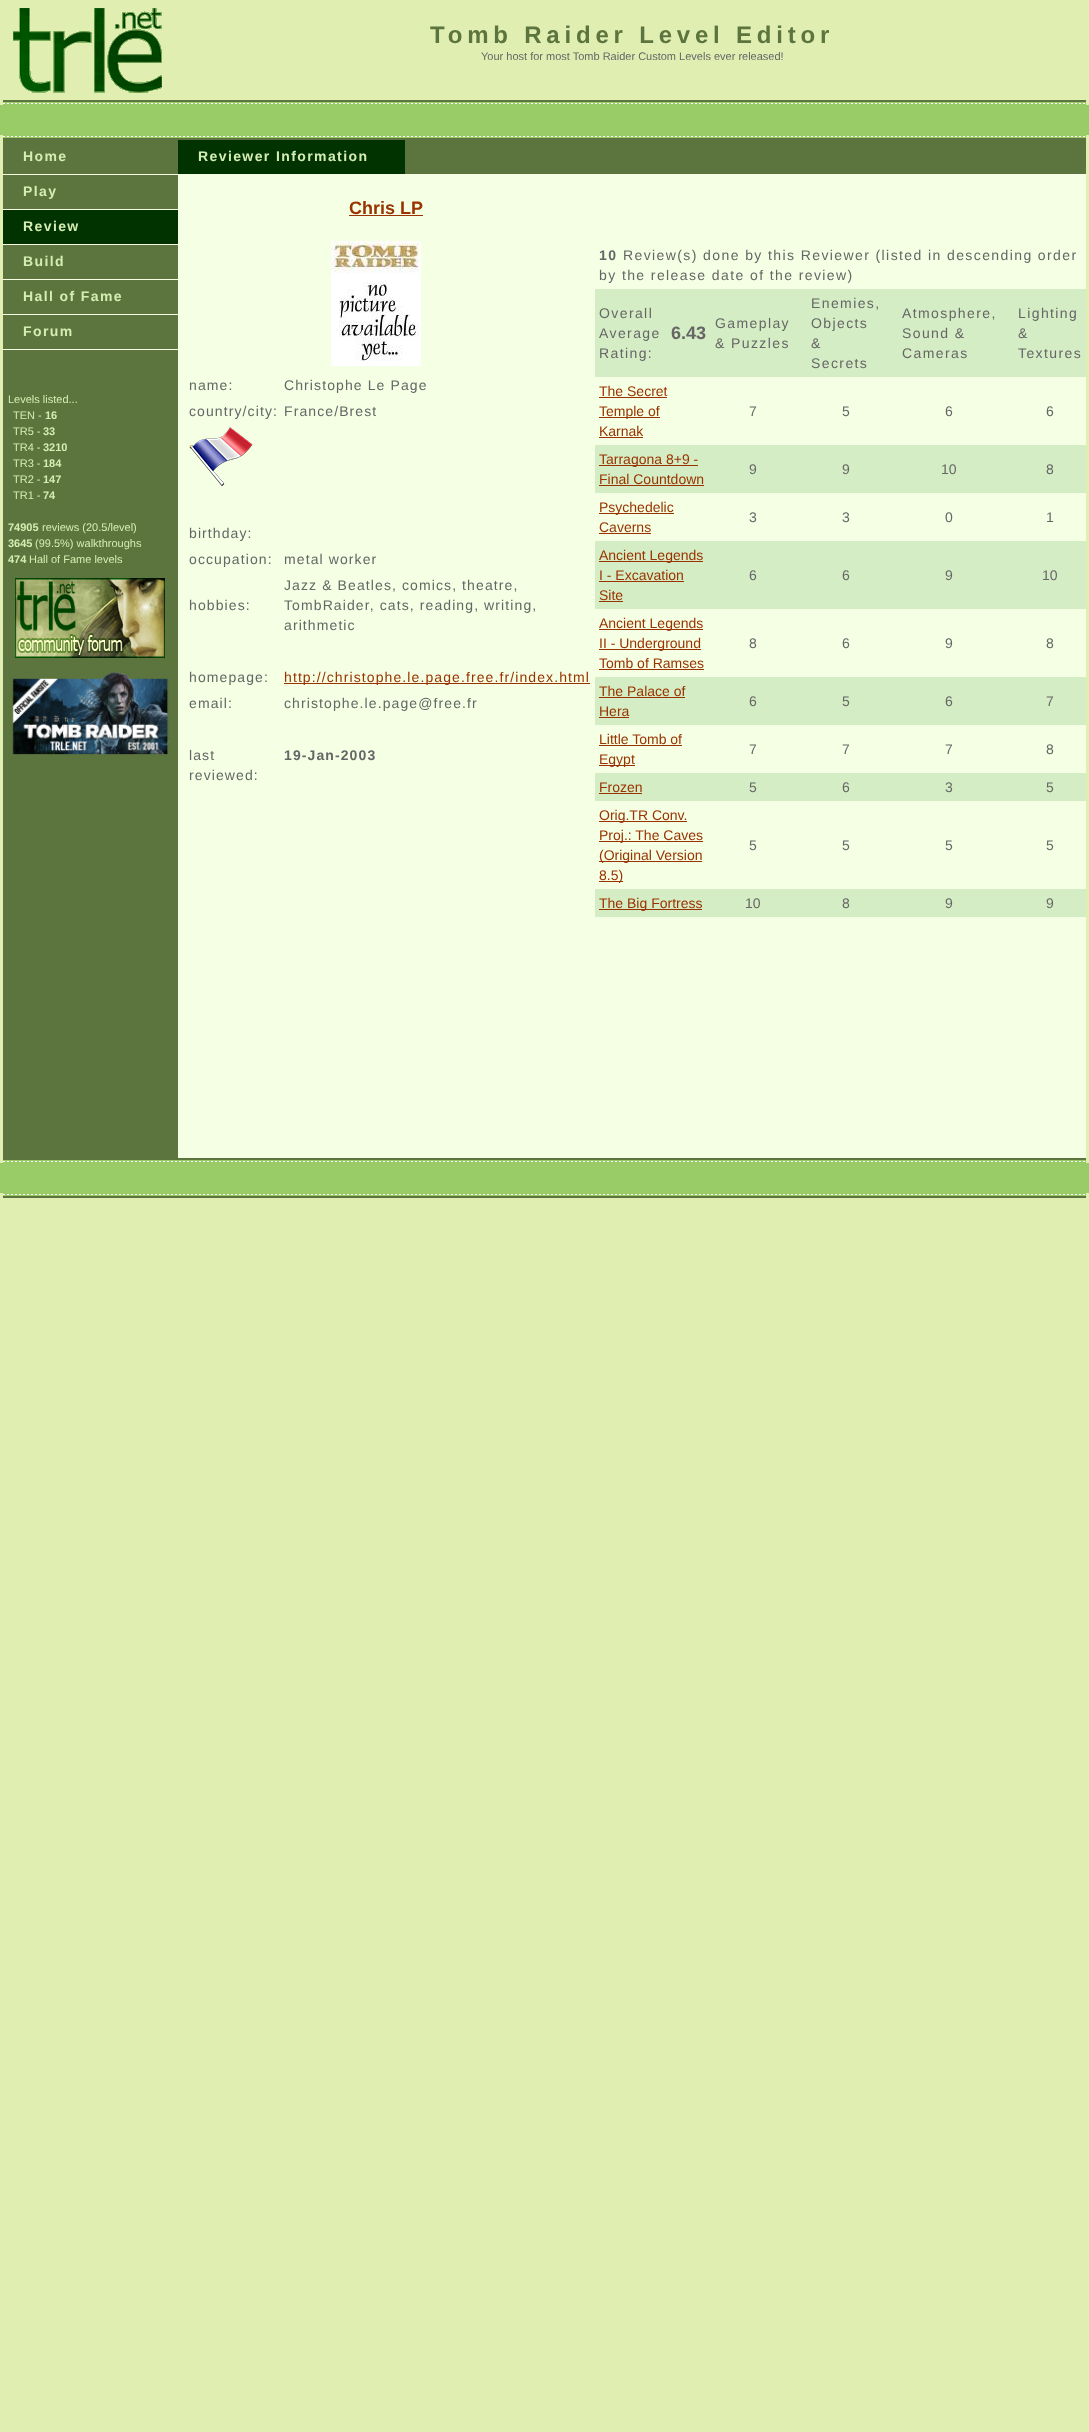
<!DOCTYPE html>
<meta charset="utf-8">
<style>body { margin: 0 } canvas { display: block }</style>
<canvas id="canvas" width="1089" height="2432"></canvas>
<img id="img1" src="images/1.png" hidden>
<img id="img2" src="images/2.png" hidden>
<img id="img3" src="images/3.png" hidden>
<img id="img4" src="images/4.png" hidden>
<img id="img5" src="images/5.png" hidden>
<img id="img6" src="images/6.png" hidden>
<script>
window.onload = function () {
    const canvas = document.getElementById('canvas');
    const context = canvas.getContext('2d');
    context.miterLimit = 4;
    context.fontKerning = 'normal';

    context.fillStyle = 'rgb(225, 238, 178)';
    context.fillRect(0, 0, 1089, 2432);
    context.drawImage(document.getElementById('img1'), 13, 8, 149, 85);
    context.fillStyle = 'rgb(92, 116, 61)';
    context.fillRect(3, 100, 1083, 2);
    context.fillStyle = 'rgb(153, 204, 102)';
    context.fillRect(3, 102, 1083, 3);
    context.drawImage(document.getElementById('img2'), 3, 103, 1082, 1);
    context.fillRect(0, 105, 1089, 30);
    context.fillRect(3, 135, 1083, 3);
    context.drawImage(document.getElementById('img2'), 3, 136, 1082, 1);
    context.fillStyle = 'rgb(92, 116, 61)';
    context.fillRect(3, 138, 1083, 2);
    context.fillRect(3, 140, 175, 1018);
    context.fillStyle = 'rgb(244, 255, 228)';
    context.fillRect(3, 174, 1083, 1);
    context.fillRect(3, 209, 175, 1);
    context.fillStyle = 'rgb(0, 51, 0)';
    context.fillRect(3, 210, 175, 34);
    context.fillStyle = 'rgb(244, 255, 228)';
    context.fillRect(3, 244, 175, 1);
    context.fillRect(3, 279, 175, 1);
    context.fillRect(3, 314, 175, 1);
    context.fillRect(3, 349, 175, 1);
    context.drawImage(document.getElementById('img3'), 15, 578, 150, 80);
    context.drawImage(document.getElementById('img4'), 12, 672, 158, 83);
    context.fillStyle = 'rgb(92, 116, 61)';
    context.fillRect(405, 140, 681, 34);
    context.fillStyle = 'rgb(0, 51, 0)';
    context.fillRect(178, 140, 227, 34);
    context.fillStyle = 'rgb(244, 255, 228)';
    context.fillRect(178, 175, 908, 983);
    context.fillStyle = 'rgb(153, 51, 0)';
    context.fillRect(349, 215, 74, 1);
    context.drawImage(document.getElementById('img5'), 331, 241, 90, 125);
    context.drawImage(document.getElementById('img6'), 189, 427, 64, 59);
    context.fillRect(284, 683, 306, 1);
    context.fillStyle = 'rgb(213, 237, 196)';
    context.fillRect(595, 289, 491, 88);
    context.fillStyle = 'rgb(153, 51, 0)';
    context.fillRect(599, 397, 68, 1);
    context.fillRect(599, 417, 61, 1);
    context.fillRect(599, 437, 44, 1);
    context.fillStyle = 'rgb(213, 237, 196)';
    context.fillRect(595, 445, 491, 48);
    context.fillStyle = 'rgb(153, 51, 0)';
    context.fillRect(599, 465, 99, 1);
    context.fillRect(599, 485, 105, 1);
    context.fillRect(599, 513, 75, 1);
    context.fillRect(599, 533, 52, 1);
    context.fillStyle = 'rgb(213, 237, 196)';
    context.fillRect(595, 541, 491, 68);
    context.fillStyle = 'rgb(153, 51, 0)';
    context.fillRect(599, 561, 104, 1);
    context.fillRect(599, 581, 85, 1);
    context.fillRect(599, 601, 24, 1);
    context.fillRect(599, 629, 104, 1);
    context.fillRect(599, 649, 102, 1);
    context.fillRect(599, 669, 105, 1);
    context.fillStyle = 'rgb(213, 237, 196)';
    context.fillRect(595, 677, 491, 48);
    context.fillStyle = 'rgb(153, 51, 0)';
    context.fillRect(599, 697, 86, 1);
    context.fillRect(599, 717, 30, 1);
    context.fillRect(599, 745, 83, 1);
    context.fillRect(599, 765, 36, 1);
    context.fillStyle = 'rgb(213, 237, 196)';
    context.fillRect(595, 773, 491, 28);
    context.fillStyle = 'rgb(153, 51, 0)';
    context.fillRect(599, 793, 43, 1);
    context.fillRect(599, 821, 88, 1);
    context.fillRect(599, 841, 104, 1);
    context.fillRect(599, 861, 103, 1);
    context.fillRect(599, 881, 24, 1);
    context.fillStyle = 'rgb(213, 237, 196)';
    context.fillRect(595, 889, 491, 28);
    context.fillStyle = 'rgb(153, 51, 0)';
    context.fillRect(599, 909, 103, 1);
    context.fillStyle = 'rgb(92, 116, 61)';
    context.fillRect(3, 1158, 1083, 2);
    context.fillStyle = 'rgb(153, 204, 102)';
    context.fillRect(3, 1160, 1083, 3);
    context.drawImage(document.getElementById('img2'), 3, 1161, 1082, 1);
    context.fillRect(0, 1163, 1089, 30);
    context.fillRect(3, 1193, 1083, 3);
    context.drawImage(document.getElementById('img2'), 3, 1194, 1082, 1);
    context.fillStyle = 'rgb(92, 116, 61)';
    context.fillRect(3, 1196, 1083, 2);
    context.letterSpacing = '4.8px';
    context.font = 'bold 24px Liberation Sans';
    context.fillText('Tomb Raider Level Editor', 430, 43);
    context.letterSpacing = '0px';
    context.font = '11px Liberation Sans';
    context.fillStyle = 'rgb(102, 102, 102)';
    context.fillText('Your host for most Tomb Raider Custom Levels ever released!', 481, 60);
    context.letterSpacing = '1.4px';
    context.font = 'bold 14px Liberation Sans';
    context.fillStyle = 'rgb(213, 237, 179)';
    context.fillText('Home', 23, 161);
    context.fillText('Play', 23, 196);
    context.fillText('Review', 23, 231);
    context.fillText('Build', 23, 266);
    context.fillText('Hall of Fame', 23, 301);
    context.fillText('Forum', 23, 336);
    context.letterSpacing = '0px';
    context.font = '11px Liberation Sans';
    context.fillText('Levels listed...', 8, 403);
    context.fillText('TEN -', 13, 419);
    context.font = 'bold 11px Liberation Sans';
    context.fillText('16', 45, 419);
    context.font = '11px Liberation Sans';
    context.fillText('TR5 -', 13, 435);
    context.font = 'bold 11px Liberation Sans';
    context.fillText('33', 43, 435);
    context.font = '11px Liberation Sans';
    context.fillText('TR4 -', 13, 451);
    context.font = 'bold 11px Liberation Sans';
    context.fillText('3210', 43, 451);
    context.font = '11px Liberation Sans';
    context.fillText('TR3 -', 13, 467);
    context.font = 'bold 11px Liberation Sans';
    context.fillText('184', 43, 467);
    context.font = '11px Liberation Sans';
    context.fillText('TR2 -', 13, 483);
    context.font = 'bold 11px Liberation Sans';
    context.fillText('147', 43, 483);
    context.font = '11px Liberation Sans';
    context.fillText('TR1 -', 13, 499);
    context.font = 'bold 11px Liberation Sans';
    context.fillText('74', 43, 499);
    context.fillText('74905', 8, 531);
    context.font = '11px Liberation Sans';
    context.fillText('reviews (20.5/level)', 42, 531);
    context.font = 'bold 11px Liberation Sans';
    context.fillText('3645', 8, 547);
    context.font = '11px Liberation Sans';
    context.fillText('(99.5%) walkthroughs', 35, 547);
    context.font = 'bold 11px Liberation Sans';
    context.fillText('474', 8, 563);
    context.font = '11px Liberation Sans';
    context.fillText('Hall of Fame levels', 29, 563);
    context.letterSpacing = '1.4px';
    context.font = 'bold 14px Liberation Sans';
    context.fillText('Reviewer Information', 198, 161);
    context.letterSpacing = '0px';
    context.font = 'bold 18px Liberation Sans';
    context.fillStyle = 'rgb(153, 51, 0)';
    context.fillText('Chris LP', 349, 214);
    context.letterSpacing = '1.1px';
    context.font = '14px Liberation Sans';
    context.fillStyle = 'rgb(102, 102, 102)';
    context.fillText('name:', 189, 390);
    context.fillText('Christophe Le Page', 284, 390);
    context.fillText('country/city:', 189, 416);
    context.fillText('France/Brest', 284, 416);
    context.fillText('birthday:', 189, 538);
    context.fillText('occupation:', 189, 564);
    context.fillText('metal worker', 284, 564);
    context.fillText('hobbies:', 189, 610);
    context.fillText('Jazz & Beatles, comics, theatre,', 284, 590);
    context.fillText('TombRaider, cats, reading, writing,', 284, 610);
    context.fillText('arithmetic', 284, 630);
    context.fillText('homepage:', 189, 682);
    context.fillStyle = 'rgb(153, 51, 0)';
    context.fillText('http://christophe.le.page.free.fr/index.html', 284, 682);
    context.fillStyle = 'rgb(102, 102, 102)';
    context.fillText('email:', 189, 708);
    context.fillText('christophe.le.page@free.fr', 284, 708);
    context.fillText('last', 189, 760);
    context.fillText('reviewed:', 189, 780);
    context.font = 'bold 14px Liberation Sans';
    context.fillText('19-Jan-2003', 284, 760);
    context.letterSpacing = '1.4px';
    context.fillText('10', 599, 260);
    context.font = '14px Liberation Sans';
    context.fillText('Review(s) done by this Reviewer (listed in descending order', 623, 260);
    context.fillText('by the release date of the review)', 599, 280);
    context.fillText('Overall', 599, 318);
    context.fillText('Average', 599, 338);
    context.fillText('Rating:', 599, 358);
    context.letterSpacing = '0px';
    context.font = 'bold 18px Liberation Sans';
    context.fillText('6.43', 671, 339);
    context.letterSpacing = '1.4px';
    context.font = '14px Liberation Sans';
    context.fillText('Gameplay', 715, 328);
    context.fillText('& Puzzles', 715, 348);
    context.fillText('Enemies,', 811, 308);
    context.fillText('Objects', 811, 328);
    context.fillText('&', 811, 348);
    context.fillText('Secrets', 811, 368);
    context.fillText('Atmosphere,', 902, 318);
    context.fillText('Sound &', 902, 338);
    context.fillText('Cameras', 902, 358);
    context.fillText('Lighting', 1018, 318);
    context.fillText('&', 1018, 338);
    context.fillText('Textures', 1018, 358);
    context.letterSpacing = '0px';
    context.fillStyle = 'rgb(153, 51, 0)';
    context.fillText('The Secret', 599, 396);
    context.fillText('Temple of', 599, 416);
    context.fillText('Karnak', 599, 436);
    context.fillStyle = 'rgb(102, 102, 102)';
    context.fillText('7', 749, 416);
    context.fillText('5', 842, 416);
    context.fillText('6', 945, 416);
    context.fillText('6', 1046, 416);
    context.fillStyle = 'rgb(153, 51, 0)';
    context.fillText('Tarragona 8+9 -', 599, 464);
    context.fillText('Final Countdown', 599, 484);
    context.fillStyle = 'rgb(102, 102, 102)';
    context.fillText('9', 749, 474);
    context.fillText('9', 842, 474);
    context.fillText('10', 941, 474);
    context.fillText('8', 1046, 474);
    context.fillStyle = 'rgb(153, 51, 0)';
    context.fillText('Psychedelic', 599, 512);
    context.fillText('Caverns', 599, 532);
    context.fillStyle = 'rgb(102, 102, 102)';
    context.fillText('3', 749, 522);
    context.fillText('3', 842, 522);
    context.fillText('0', 945, 522);
    context.fillText('1', 1046, 522);
    context.fillStyle = 'rgb(153, 51, 0)';
    context.fillText('Ancient Legends', 599, 560);
    context.fillText('I - Excavation', 599, 580);
    context.fillText('Site', 599, 600);
    context.fillStyle = 'rgb(102, 102, 102)';
    context.fillText('6', 749, 580);
    context.fillText('6', 842, 580);
    context.fillText('9', 945, 580);
    context.fillText('10', 1042, 580);
    context.fillStyle = 'rgb(153, 51, 0)';
    context.fillText('Ancient Legends', 599, 628);
    context.fillText('II - Underground', 599, 648);
    context.fillText('Tomb of Ramses', 599, 668);
    context.fillStyle = 'rgb(102, 102, 102)';
    context.fillText('8', 749, 648);
    context.fillText('6', 842, 648);
    context.fillText('9', 945, 648);
    context.fillText('8', 1046, 648);
    context.fillStyle = 'rgb(153, 51, 0)';
    context.fillText('The Palace of', 599, 696);
    context.fillText('Hera', 599, 716);
    context.fillStyle = 'rgb(102, 102, 102)';
    context.fillText('6', 749, 706);
    context.fillText('5', 842, 706);
    context.fillText('6', 945, 706);
    context.fillText('7', 1046, 706);
    context.fillStyle = 'rgb(153, 51, 0)';
    context.fillText('Little Tomb of', 599, 744);
    context.fillText('Egypt', 599, 764);
    context.fillStyle = 'rgb(102, 102, 102)';
    context.fillText('7', 749, 754);
    context.fillText('7', 842, 754);
    context.fillText('7', 945, 754);
    context.fillText('8', 1046, 754);
    context.fillStyle = 'rgb(153, 51, 0)';
    context.fillText('Frozen', 599, 792);
    context.fillStyle = 'rgb(102, 102, 102)';
    context.fillText('5', 749, 792);
    context.fillText('6', 842, 792);
    context.fillText('3', 945, 792);
    context.fillText('5', 1046, 792);
    context.fillStyle = 'rgb(153, 51, 0)';
    context.fillText('Orig.TR Conv.', 599, 820);
    context.fillText('Proj.: The Caves', 599, 840);
    context.fillText('(Original Version', 599, 860);
    context.fillText('8.5)', 599, 880);
    context.fillStyle = 'rgb(102, 102, 102)';
    context.fillText('5', 749, 850);
    context.fillText('5', 842, 850);
    context.fillText('5', 945, 850);
    context.fillText('5', 1046, 850);
    context.fillStyle = 'rgb(153, 51, 0)';
    context.fillText('The Big Fortress', 599, 908);
    context.fillStyle = 'rgb(102, 102, 102)';
    context.fillText('10', 745, 908);
    context.fillText('8', 842, 908);
    context.fillText('9', 945, 908);
    context.fillText('9', 1046, 908);
};
</script>
